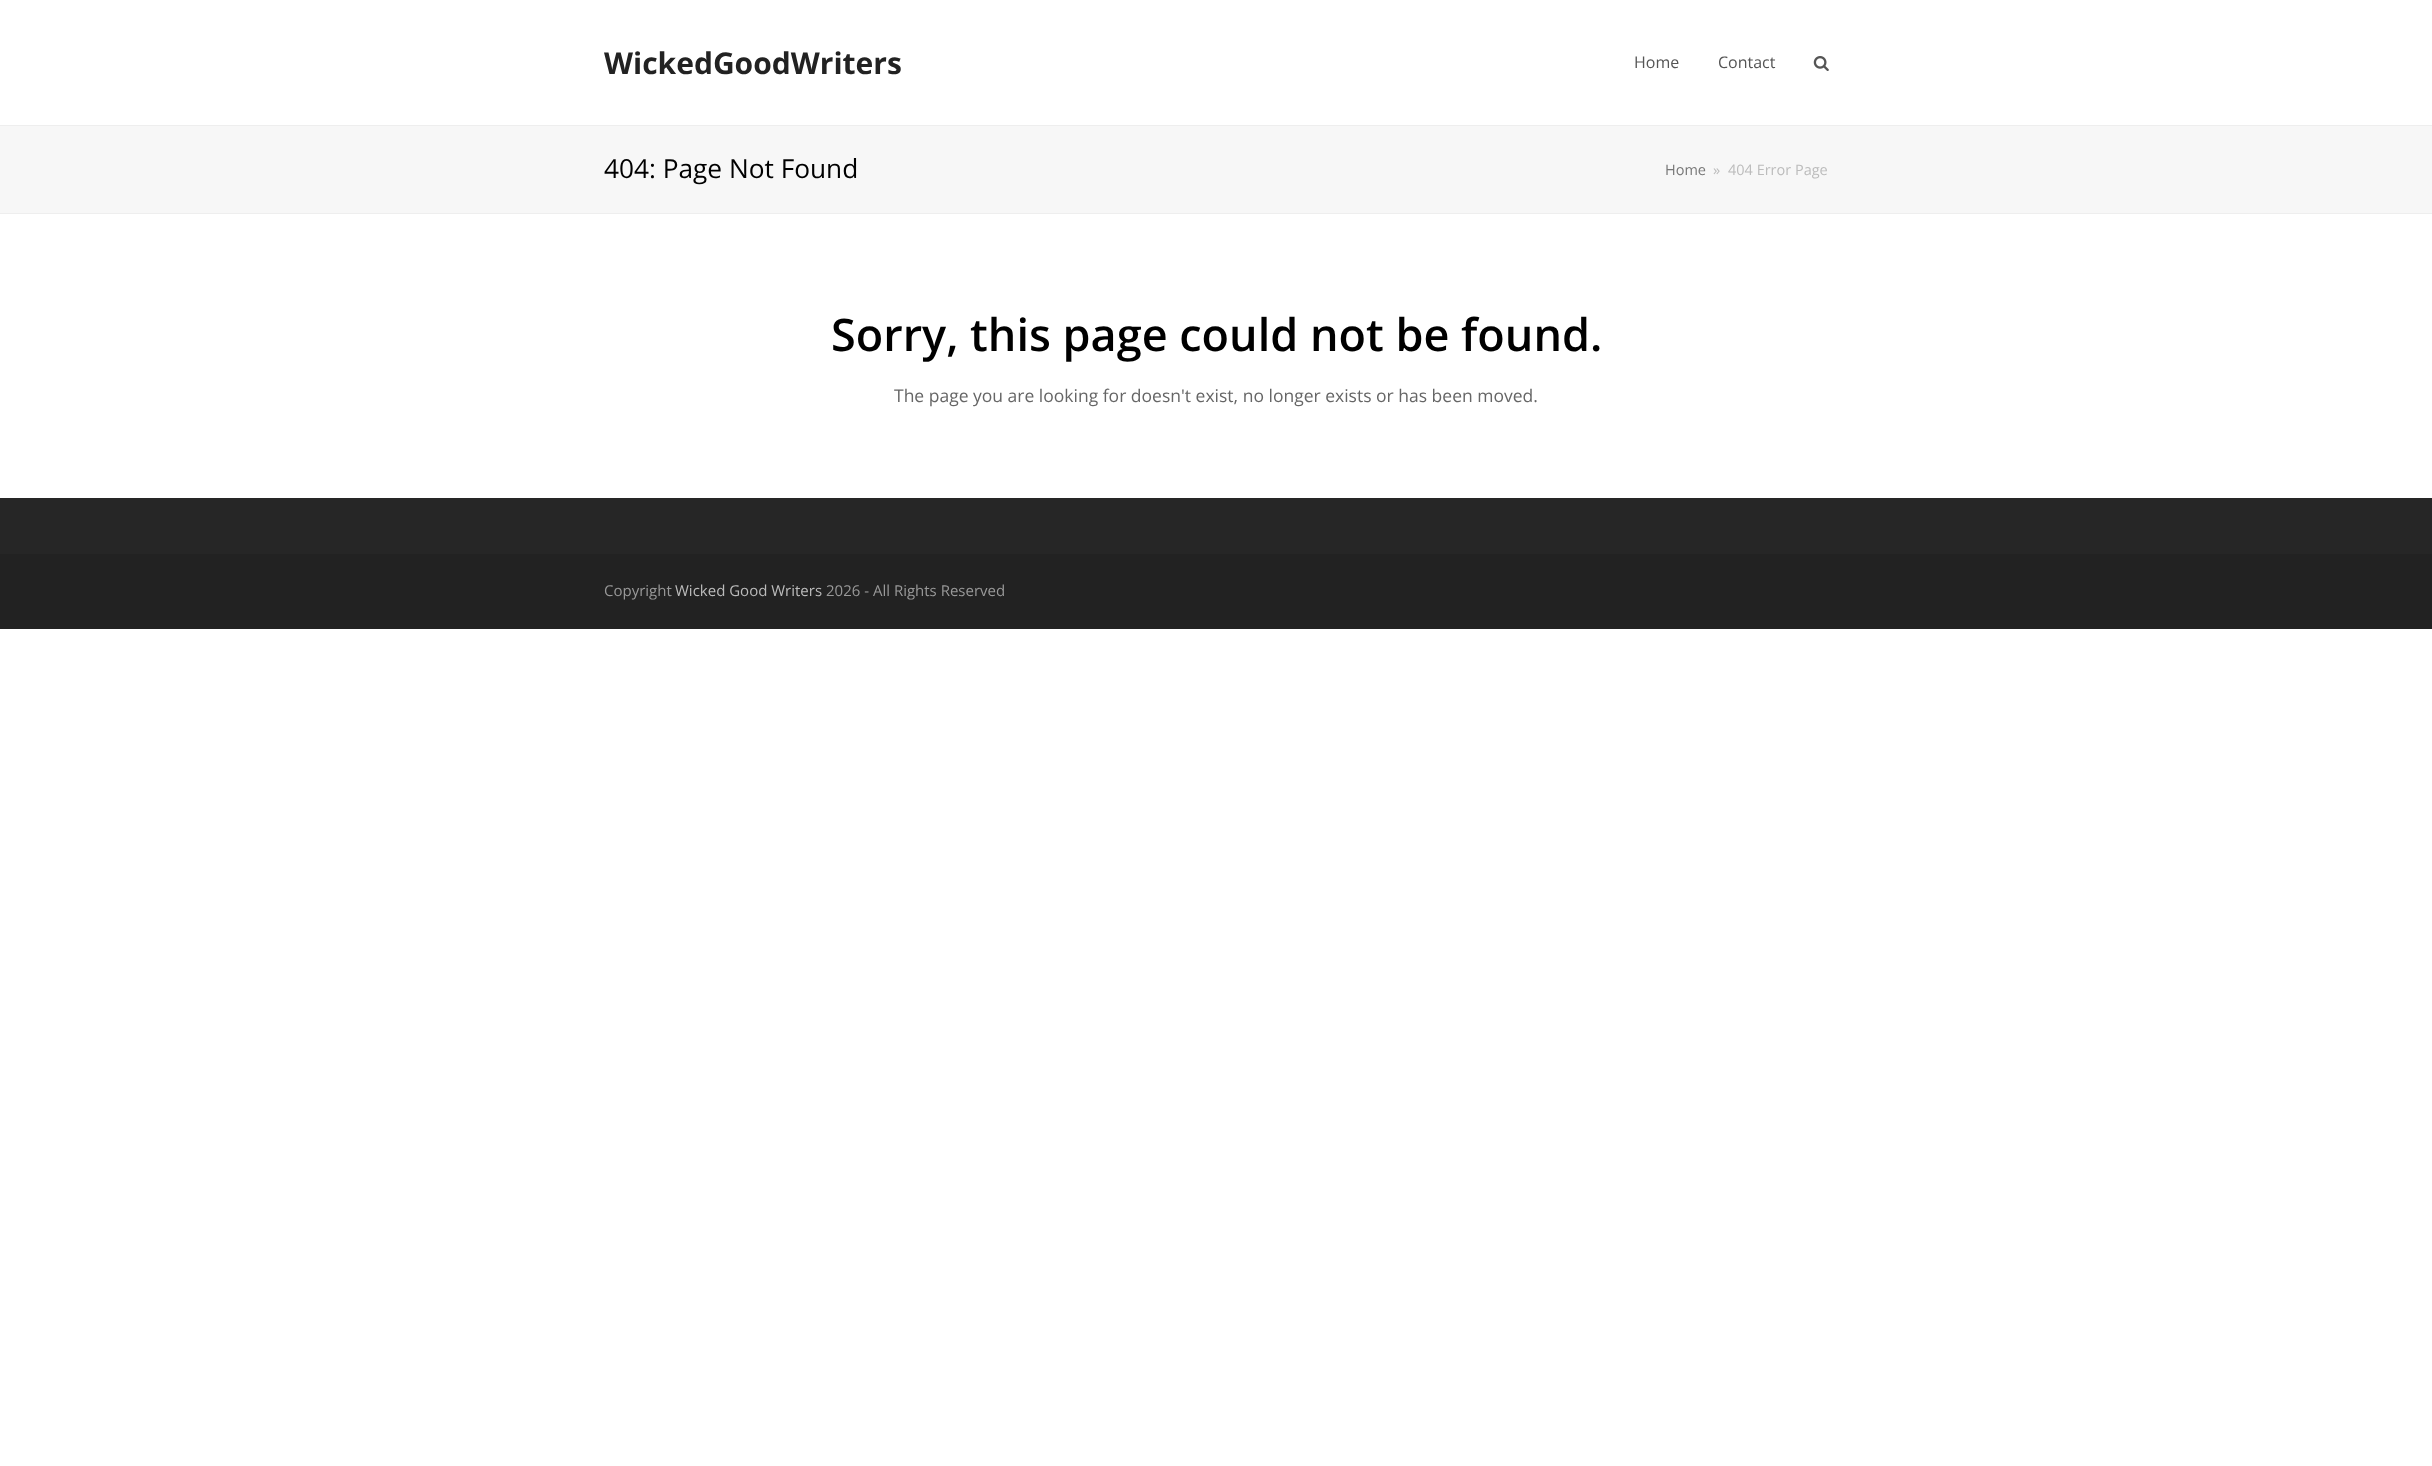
<!DOCTYPE html>
<meta charset="utf-8">
<style>body { margin: 0 } canvas { display: block }</style>
<canvas id="canvas" width="2432" height="1466"></canvas>
<img id="img1" src="images/1.png" hidden>
<script>
window.onload = function () {
    const canvas = document.getElementById('canvas');
    const context = canvas.getContext('2d');
    context.miterLimit = 4;
    context.fontKerning = 'normal';

    context.fillStyle = 'rgb(255, 255, 255)';
    context.fillRect(0, 0, 2432, 1466);
    context.drawImage(document.getElementById('img1'), 1813, 56, 16, 15);
    context.fillStyle = 'rgb(247, 247, 247)';
    context.fillRect(0, 126, 2432, 87);
    context.fillStyle = 'rgb(238, 238, 238)';
    context.fillRect(0, 125, 2432, 1);
    context.fillRect(0, 213, 2432, 1);
    context.fillStyle = 'rgb(38, 38, 38)';
    context.fillRect(0, 498, 2432, 56);
    context.fillStyle = 'rgb(34, 34, 34)';
    context.fillRect(0, 554, 2432, 75);
    context.font = 'bold 30px Open Sans';
    context.fillText('WickedGoodWriters', 604, 74);
    context.font = '16px Open Sans';
    context.fillStyle = 'rgb(85, 85, 85)';
    context.fillText('Home', 1634, 68);
    context.fillText('Contact', 1718, 68);
    context.font = '26.25px Open Sans';
    context.fillStyle = 'rgb(0, 0, 0)';
    context.fillText('404: Page Not Found', 604, 178);
    context.font = '14.5px Open Sans';
    context.fillStyle = 'rgb(119, 119, 119)';
    context.fillText('Home', 1665, 175);
    context.fillStyle = 'rgb(188, 188, 188)';
    context.fillText('»', 1713, 175);
    context.fillText('404 Error Page', 1728, 175);
    context.font = '600 45px Open Sans';
    context.fillStyle = 'rgb(0, 0, 0)';
    context.fillText('Sorry, this page could not be found.', 831, 351);
    context.font = '17.5px Open Sans';
    context.fillStyle = 'rgb(102, 102, 102)';
    context.fillText('The page you are looking for doesn\'t exist, no longer exists or has been moved.', 894, 402);
    context.font = '15px Open Sans';
    context.fillStyle = 'rgb(153, 153, 153)';
    context.fillText('Copyright', 604, 596);
    context.fillStyle = 'rgb(188, 188, 188)';
    context.fillText('Wicked Good Writers', 675, 596);
    context.fillStyle = 'rgb(153, 153, 153)';
    context.fillText('2026 - All Rights Reserved', 826, 596);
};
</script>
